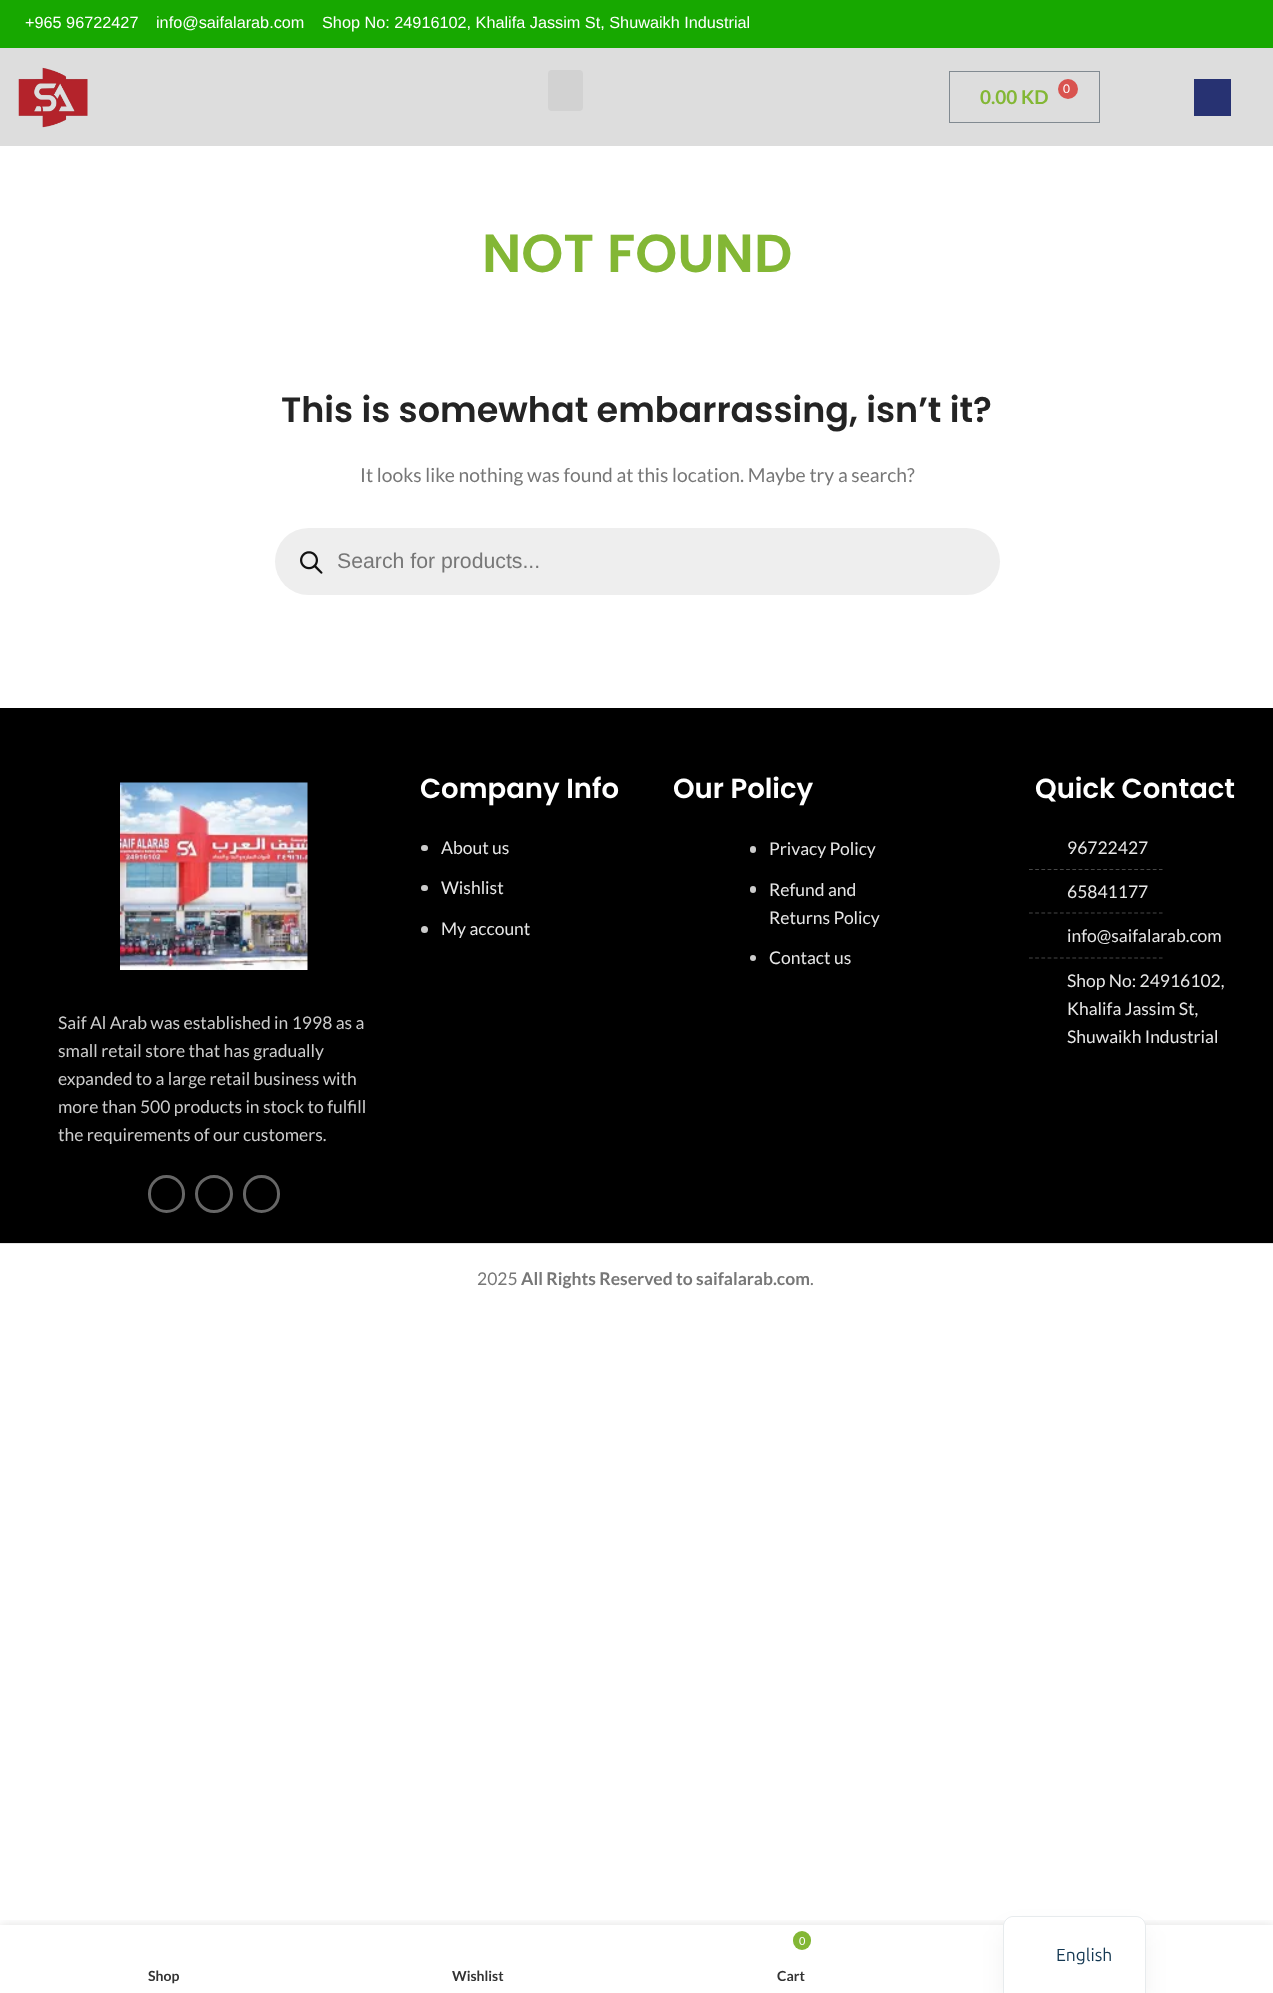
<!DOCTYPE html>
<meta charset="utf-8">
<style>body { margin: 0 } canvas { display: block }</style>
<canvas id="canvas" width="1273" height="1993"></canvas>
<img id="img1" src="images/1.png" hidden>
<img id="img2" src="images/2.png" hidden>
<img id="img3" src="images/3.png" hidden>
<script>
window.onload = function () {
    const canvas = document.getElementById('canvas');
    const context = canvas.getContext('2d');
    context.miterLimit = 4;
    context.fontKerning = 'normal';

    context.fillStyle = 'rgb(255, 255, 255)';
    context.fillRect(0, 0, 1273, 1993);
    context.fillStyle = 'rgb(221, 221, 221)';
    context.fillRect(0, 48, 1273, 98);
    context.fillStyle = 'rgb(23, 168, 0)';
    context.fillRect(0, 0, 1273, 48);
    context.drawImage(document.getElementById('img1'), 18, 67, 70, 61);
    context.fillStyle = 'rgb(210, 210, 210)';
    context.beginPath();
    context.roundRect(548, 70, 35, 41, 4);
    context.fill();
    context.strokeStyle = 'rgb(129, 138, 145)';
    context.strokeRect(949.5, 71.5, 150, 51);
    context.fillStyle = 'rgb(217, 83, 79)';
    context.beginPath();
    context.arc(1068, 89, 10, 0, 2 * Math.PI);
    context.fill();
    context.fillStyle = 'rgb(39, 50, 114)';
    context.fillRect(1194, 79, 37, 37);
    context.fillStyle = 'rgb(238, 238, 238)';
    context.beginPath();
    context.roundRect(275, 528, 725, 67, 33.5);
    context.fill();
    context.drawImage(document.getElementById('img2'), 300, 551, 23, 23);
    context.fillStyle = 'rgb(0, 0, 0)';
    context.fillRect(0, 708, 1273, 535);
    context.fillStyle = 'rgb(204, 204, 204)';
    context.beginPath();
    context.roundRect(421, 845, 7, 6, 3);
    context.fill();
    context.beginPath();
    context.roundRect(421, 885, 7, 6, 3);
    context.fill();
    context.beginPath();
    context.arc(424.5, 929.5, 3.5, 0, 2 * Math.PI);
    context.fill();
    context.beginPath();
    context.roundRect(750, 846, 6, 7, 3);
    context.fill();
    context.beginPath();
    context.roundRect(750, 886, 6, 7, 3);
    context.fill();
    context.beginPath();
    context.arc(753, 958, 3, 0, 2 * Math.PI);
    context.fill();
    context.beginPath();
    context.moveTo(1029, 869.5);
    context.lineTo(1162.5, 869.5);
    context.strokeStyle = 'rgb(71, 71, 71)';
    context.lineWidth = 1.2;
    context.setLineDash([3.75, 2.44]);
    context.stroke();
    context.beginPath();
    context.moveTo(1029, 913);
    context.lineTo(1162.5, 913);
    context.stroke();
    context.beginPath();
    context.moveTo(1029, 958);
    context.lineTo(1162.5, 958);
    context.stroke();
    context.drawImage(document.getElementById('img3'), 120, 782, 188, 188);
    context.beginPath();
    context.roundRect(149.5, 1176.5, 34, 35, 17);
    context.strokeStyle = 'rgb(102, 102, 102)';
    context.lineWidth = 3;
    context.setLineDash([]);
    context.stroke();
    context.beginPath();
    context.arc(214, 1194, 17.5, 0, 2 * Math.PI);
    context.stroke();
    context.beginPath();
    context.roundRect(244.5, 1176.5, 34, 35, 17);
    context.stroke();
    context.fillStyle = 'rgb(228, 228, 228)';
    context.fillRect(0, 1243, 1273, 1);
    context.save();
    context.beginPath();
    context.rect(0, 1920, 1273, 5);
    context.clip();
    context.fillStyle = 'rgba(0, 0, 0, 0.12)';
    context.filter = 'blur(5.5px)';
    context.beginPath();
    context.rect(0, 1925, 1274, 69);
    context.fill();
    context.filter = 'none';
    context.restore();
    context.fillStyle = 'rgb(131, 183, 53)';
    context.beginPath();
    context.roundRect(793, 1931, 18, 19, 9);
    context.fill();
    context.fillStyle = 'rgba(0, 0, 0, 0.05)';
    context.filter = 'blur(12.5px)';
    context.beginPath();
    context.roundRect(1003, 1929, 143, 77, 10);
    context.fill();
    context.filter = 'none';
    context.fillStyle = 'rgb(255, 255, 255)';
    context.beginPath();
    context.moveTo(1013, 1916);
    context.lineTo(1136, 1916);
    context.bezierCurveTo(1141.5, 1916, 1146, 1920.5, 1146, 1926);
    context.lineTo(1146, 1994);
    context.lineTo(1003, 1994);
    context.lineTo(1003, 1926);
    context.bezierCurveTo(1003, 1920.5, 1007.5, 1916, 1013, 1916);
    context.closePath();
    context.fill();
    context.beginPath();
    context.moveTo(1013, 1916.5);
    context.lineTo(1136, 1916.5);
    context.bezierCurveTo(1141, 1916.5, 1145.5, 1921, 1145.5, 1926);
    context.lineTo(1145.5, 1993.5);
    context.lineTo(1003.5, 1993.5);
    context.lineTo(1003.5, 1926);
    context.bezierCurveTo(1003.5, 1921, 1008, 1916.5, 1013, 1916.5);
    context.closePath();
    context.strokeStyle = 'rgba(20, 56, 82, 0.1)';
    context.lineWidth = 1;
    context.stroke();
    context.font = '16.25px Liberation Sans';
    context.fillText('+965 96722427', 25, 28);
    context.fillText('info@saifalarab.com', 156, 28);
    context.fillText('Shop No: 24916102, Khalifa Jassim St, Shuwaikh Industrial', 322, 28);
    context.font = '12px Lato';
    context.fillText('0', 1063, 93);
    context.font = 'bold 19px Lato';
    context.fillStyle = 'rgb(131, 183, 53)';
    context.fillText('0.00 KD', 980, 104);
    context.font = '600 53.5px Poppins';
    context.fillText('NOT FOUND', 482, 272);
    context.font = '600 35px Poppins';
    context.fillStyle = 'rgb(36, 36, 36)';
    context.fillText('This is somewhat embarrassing, isn’t it?', 281, 422);
    context.font = '19.25px Lato';
    context.fillStyle = 'rgb(119, 119, 119)';
    context.fillText('It looks like nothing was found at this location. Maybe try a search?', 360, 482);
    context.font = '21.25px Liberation Sans';
    context.fillText('Search for products...', 337, 568);
    context.font = '600 27.5px Poppins';
    context.fillStyle = 'rgb(255, 255, 255)';
    context.fillText('Company Info', 420, 798);
    context.font = '17.5px Lato';
    context.fillStyle = 'rgb(230, 230, 230)';
    context.fillText('About us', 441, 854);
    context.fillText('Wishlist', 441, 894);
    context.fillText('My account', 441, 935);
    context.font = '600 27.5px Poppins';
    context.fillStyle = 'rgb(255, 255, 255)';
    context.fillText('Our Policy', 673, 798);
    context.font = '17.5px Lato';
    context.fillStyle = 'rgb(230, 230, 230)';
    context.fillText('Privacy Policy', 769, 855);
    context.fillText('Refund and', 769, 896);
    context.fillText('Returns Policy', 769, 924);
    context.fillText('Contact us', 769, 964);
    context.font = '600 27.5px Poppins';
    context.fillStyle = 'rgb(255, 255, 255)';
    context.fillText('Quick Contact', 1035, 798);
    context.font = '17.5px Lato';
    context.fillStyle = 'rgb(230, 230, 230)';
    context.fillText('96722427', 1067, 854);
    context.fillText('65841177', 1067, 898);
    context.fillText('info@saifalarab.com', 1067, 942);
    context.fillText('Shop No: 24916102,', 1067, 987);
    context.fillText('Khalifa Jassim St,', 1067, 1015);
    context.fillText('Shuwaikh Industrial', 1067, 1043);
    context.fillStyle = 'rgb(204, 204, 204)';
    context.fillText('Saif Al Arab was established in 1998 as a', 58, 1029);
    context.fillText('small retail store that has gradually', 58, 1057);
    context.fillText('expanded to a large retail business with', 58, 1085);
    context.fillText('more than 500 products in stock to fulfill', 58, 1113);
    context.fillText('the requirements of our customers.', 58, 1141);
    context.fillStyle = 'rgb(119, 119, 119)';
    context.fillText('2025', 477, 1285);
    context.font = 'bold 17.5px Lato';
    context.fillText('All Rights Reserved to saifalarab.com', 521, 1285);
    context.font = '17.5px Lato';
    context.fillText('.', 810, 1285);
    context.font = 'bold 14px Lato';
    context.fillStyle = 'rgb(51, 51, 51)';
    context.fillText('Shop', 148, 1981);
    context.fillText('Wishlist', 452, 1981);
    context.font = '11px Lato';
    context.fillStyle = 'rgb(255, 255, 255)';
    context.fillText('0', 799, 1945);
    context.font = 'bold 14px Lato';
    context.fillStyle = 'rgb(51, 51, 51)';
    context.fillText('Cart', 777, 1981);
    context.font = '17.5px Ubuntu';
    context.fillStyle = 'rgb(20, 56, 82)';
    context.fillText('English', 1056, 1961);
};
</script>
